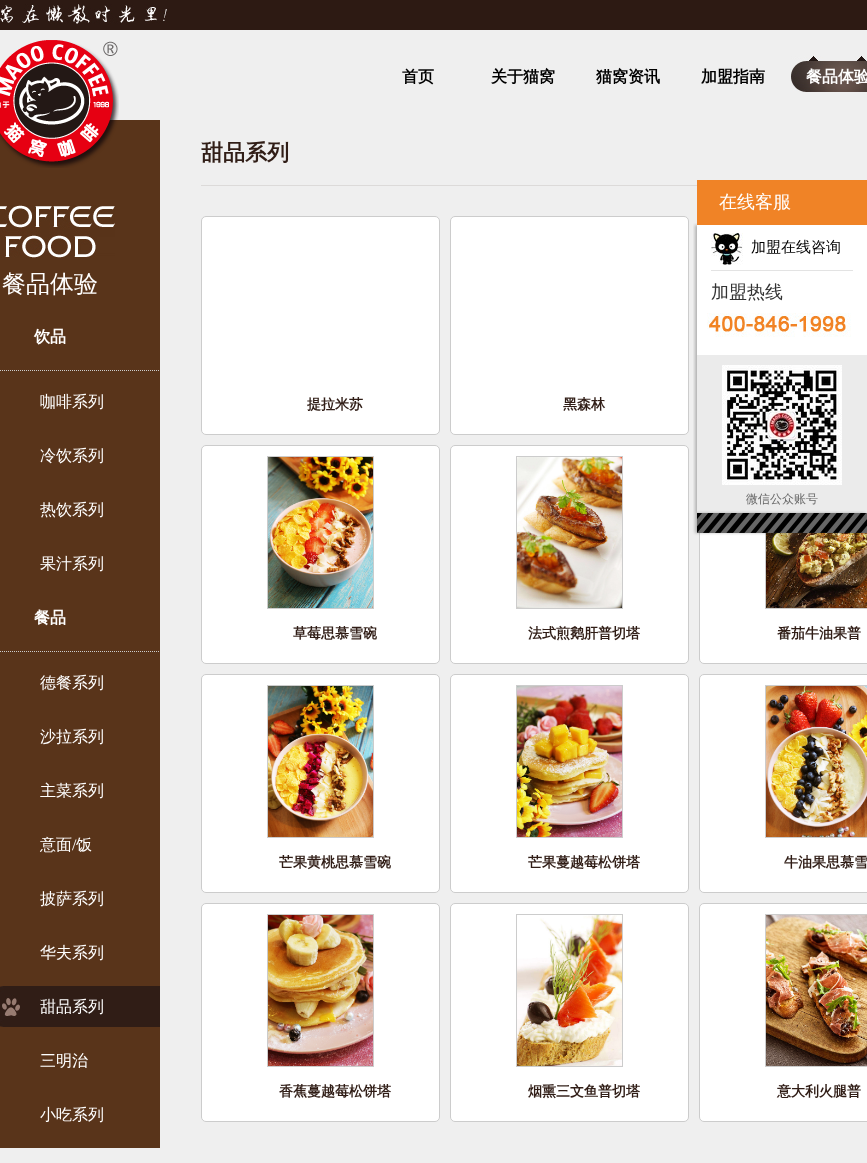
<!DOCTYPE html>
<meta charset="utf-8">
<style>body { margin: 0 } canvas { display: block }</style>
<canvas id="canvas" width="867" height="1163"></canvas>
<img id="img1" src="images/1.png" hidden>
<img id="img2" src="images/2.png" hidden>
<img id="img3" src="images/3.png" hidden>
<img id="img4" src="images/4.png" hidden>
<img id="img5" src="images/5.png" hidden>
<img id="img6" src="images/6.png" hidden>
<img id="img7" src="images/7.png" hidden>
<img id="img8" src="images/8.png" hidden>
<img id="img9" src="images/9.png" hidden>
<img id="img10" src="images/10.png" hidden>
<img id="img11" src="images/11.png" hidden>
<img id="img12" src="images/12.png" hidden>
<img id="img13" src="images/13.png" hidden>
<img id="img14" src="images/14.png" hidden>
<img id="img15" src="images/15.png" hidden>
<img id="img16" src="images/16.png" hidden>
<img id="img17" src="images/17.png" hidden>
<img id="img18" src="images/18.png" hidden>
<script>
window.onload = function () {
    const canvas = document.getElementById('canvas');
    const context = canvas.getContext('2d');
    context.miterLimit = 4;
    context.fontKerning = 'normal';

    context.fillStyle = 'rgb(239, 239, 239)';
    context.fillRect(0, 0, 867, 1163);
    context.fillStyle = 'rgb(45, 26, 19)';
    context.fillRect(0, 0, 867, 30);
    context.drawImage(document.getElementById('img1'), 0, 4, 167, 20);
    context.fillStyle = 'rgb(89, 52, 26)';
    context.fillRect(0, 120, 160, 1028);
    context.drawImage(document.getElementById('img2'), 0, 40, 119, 128);
    context.drawImage(document.getElementById('img3'), 791, 56, 76, 36);
    context.drawImage(document.getElementById('img4'), 0, 205, 115, 53);
    context.beginPath();
    context.moveTo(-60, 370.5);
    context.lineTo(160, 370.5);
    context.strokeStyle = 'rgb(204, 204, 204)';
    context.setLineDash([1, 1]);
    context.stroke();
    context.beginPath();
    context.moveTo(-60, 651.5);
    context.lineTo(160, 651.5);
    context.stroke();
    context.fillStyle = 'rgb(48, 29, 22)';
    context.fillRect(20, 986, 140, 41);
    context.drawImage(document.getElementById('img5'), 0, 986, 20, 41);
    context.fillStyle = 'rgb(220, 218, 217)';
    context.fillRect(201, 185, 496, 1);
    context.fillStyle = 'rgb(255, 255, 255)';
    context.beginPath();
    context.roundRect(201.5, 216.5, 238, 218, 4.5);
    context.fill();
    context.setLineDash([]);
    context.stroke();
    context.beginPath();
    context.roundRect(450.5, 216.5, 238, 218, 4.5);
    context.fill();
    context.stroke();
    context.beginPath();
    context.roundRect(201.5, 445.5, 238, 218, 4.5);
    context.fill();
    context.stroke();
    context.strokeRect(267.5, 456.5, 106, 152);
    context.drawImage(document.getElementById('img6'), 268, 457, 105, 151);
    context.beginPath();
    context.roundRect(450.5, 445.5, 238, 218, 4.5);
    context.fill();
    context.stroke();
    context.strokeRect(516.5, 456.5, 106, 152);
    context.drawImage(document.getElementById('img7'), 517, 457, 105, 151);
    context.beginPath();
    context.roundRect(699.5, 445.5, 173, 218, 4.5);
    context.fill();
    context.stroke();
    context.strokeRect(765.5, 456.5, 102, 152);
    context.drawImage(document.getElementById('img8'), 766, 533, 101, 75);
    context.beginPath();
    context.roundRect(201.5, 674.5, 238, 218, 4.5);
    context.fill();
    context.stroke();
    context.strokeRect(267.5, 685.5, 106, 152);
    context.drawImage(document.getElementById('img9'), 268, 686, 105, 151);
    context.beginPath();
    context.roundRect(450.5, 674.5, 238, 218, 4.5);
    context.fill();
    context.stroke();
    context.strokeRect(516.5, 685.5, 106, 152);
    context.drawImage(document.getElementById('img10'), 517, 686, 105, 151);
    context.beginPath();
    context.roundRect(699.5, 674.5, 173, 218, 4.5);
    context.fill();
    context.stroke();
    context.strokeRect(765.5, 685.5, 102, 152);
    context.drawImage(document.getElementById('img11'), 766, 686, 101, 151);
    context.beginPath();
    context.roundRect(201.5, 903.5, 238, 218, 4.5);
    context.fill();
    context.stroke();
    context.strokeRect(267.5, 914.5, 106, 152);
    context.drawImage(document.getElementById('img12'), 268, 915, 105, 151);
    context.beginPath();
    context.roundRect(450.5, 903.5, 238, 218, 4.5);
    context.fill();
    context.stroke();
    context.strokeRect(516.5, 914.5, 106, 152);
    context.drawImage(document.getElementById('img13'), 517, 915, 105, 151);
    context.beginPath();
    context.roundRect(699.5, 903.5, 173, 218, 4.5);
    context.fill();
    context.stroke();
    context.strokeRect(765.5, 914.5, 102, 152);
    context.drawImage(document.getElementById('img14'), 766, 915, 101, 151);
    context.fillRect(697, 225, 170, 130);
    context.save();
    context.beginPath();
    context.rect(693, 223, 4, 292);
    context.clip();
    context.fillStyle = 'rgba(0, 0, 0, 0.25)';
    context.filter = 'blur(1.5px)';
    context.beginPath();
    context.rect(695, 225, 170, 288);
    context.fill();
    context.filter = 'none';
    context.restore();
    context.fillStyle = 'rgb(240, 131, 38)';
    context.fillRect(697, 180, 170, 45);
    context.fillStyle = 'rgb(227, 227, 227)';
    context.fillRect(711, 270, 142, 1);
    context.drawImage(document.getElementById('img15'), 711, 233, 32, 32);
    context.drawImage(document.getElementById('img16'), 707, 313, 144, 24);
    context.fillStyle = 'rgb(235, 235, 235)';
    context.fillRect(697, 355, 170, 158);
    context.drawImage(document.getElementById('img17'), 722, 365, 120, 120);
    context.fillStyle = 'rgba(0, 0, 0, 0.25)';
    context.filter = 'blur(1.5px)';
    context.beginPath();
    context.rect(695, 513, 170, 20);
    context.fill();
    context.filter = 'none';
    context.drawImage(document.getElementById('img18'), 697, 513, 170, 20);
    context.font = 'bold 16px WenQuanYi Zen Hei';
    context.fillStyle = 'rgb(0, 0, 0)';
    context.fillText('首页', 402, 82);
    context.fillText('关于猫窝', 491, 82);
    context.fillText('猫窝资讯', 596, 82);
    context.fillText('加盟指南', 701, 82);
    context.fillStyle = 'rgb(255, 255, 255)';
    context.fillText('餐品体验', 806, 82);
    context.font = '500 24px WenQuanYi Zen Hei';
    context.fillText('餐品体验', 2, 292);
    context.font = 'bold 16px WenQuanYi Zen Hei';
    context.fillText('饮品', 34, 342);
    context.font = '500 16px WenQuanYi Zen Hei';
    context.fillText('咖啡系列', 40, 407);
    context.fillText('冷饮系列', 40, 461);
    context.fillText('热饮系列', 40, 515);
    context.fillText('果汁系列', 40, 569);
    context.font = 'bold 16px WenQuanYi Zen Hei';
    context.fillText('餐品', 34, 623);
    context.font = '500 16px WenQuanYi Zen Hei';
    context.fillText('德餐系列', 40, 688);
    context.fillText('沙拉系列', 40, 742);
    context.fillText('主菜系列', 40, 796);
    context.fillText('意面', 40, 850);
    context.font = '16px Liberation Serif';
    context.fillText('/', 72, 850);
    context.font = '500 16px WenQuanYi Zen Hei';
    context.fillText('饭', 76, 850);
    context.fillText('披萨系列', 40, 904);
    context.fillText('华夫系列', 40, 958);
    context.fillText('甜品系列', 40, 1012);
    context.fillText('三明治', 40, 1066);
    context.fillText('小吃系列', 40, 1120);
    context.font = 'bold 22px WenQuanYi Zen Hei';
    context.fillStyle = 'rgb(48, 29, 22)';
    context.fillText('甜品系列', 201, 160);
    context.font = 'bold 14px WenQuanYi Zen Hei';
    context.fillText('提拉米苏', 307, 409);
    context.fillText('黑森林', 563, 409);
    context.fillText('草莓思慕雪碗', 293, 638);
    context.fillText('法式煎鹅肝普切塔', 528, 638);
    context.fillText('番茄牛油果普', 777, 638);
    context.fillText('芒果黄桃思慕雪碗', 279, 867);
    context.fillText('芒果蔓越莓松饼塔', 528, 867);
    context.fillText('牛油果思慕雪', 784, 867);
    context.fillText('香蕉蔓越莓松饼塔', 279, 1096);
    context.fillText('烟熏三文鱼普切塔', 528, 1096);
    context.fillText('意大利火腿普', 777, 1096);
    context.font = '500 18px WenQuanYi Zen Hei';
    context.fillStyle = 'rgb(255, 255, 255)';
    context.fillText('在线客服', 719, 208);
    context.font = '500 15px WenQuanYi Zen Hei';
    context.fillStyle = 'rgb(0, 0, 0)';
    context.fillText('加盟在线咨询', 751, 252);
    context.font = '500 18px WenQuanYi Zen Hei';
    context.fillStyle = 'rgb(51, 51, 51)';
    context.fillText('加盟热线', 711, 298);
    context.font = '500 12px WenQuanYi Zen Hei';
    context.fillStyle = 'rgb(102, 102, 102)';
    context.fillText('微信公众账号', 746, 503);
};
</script>
